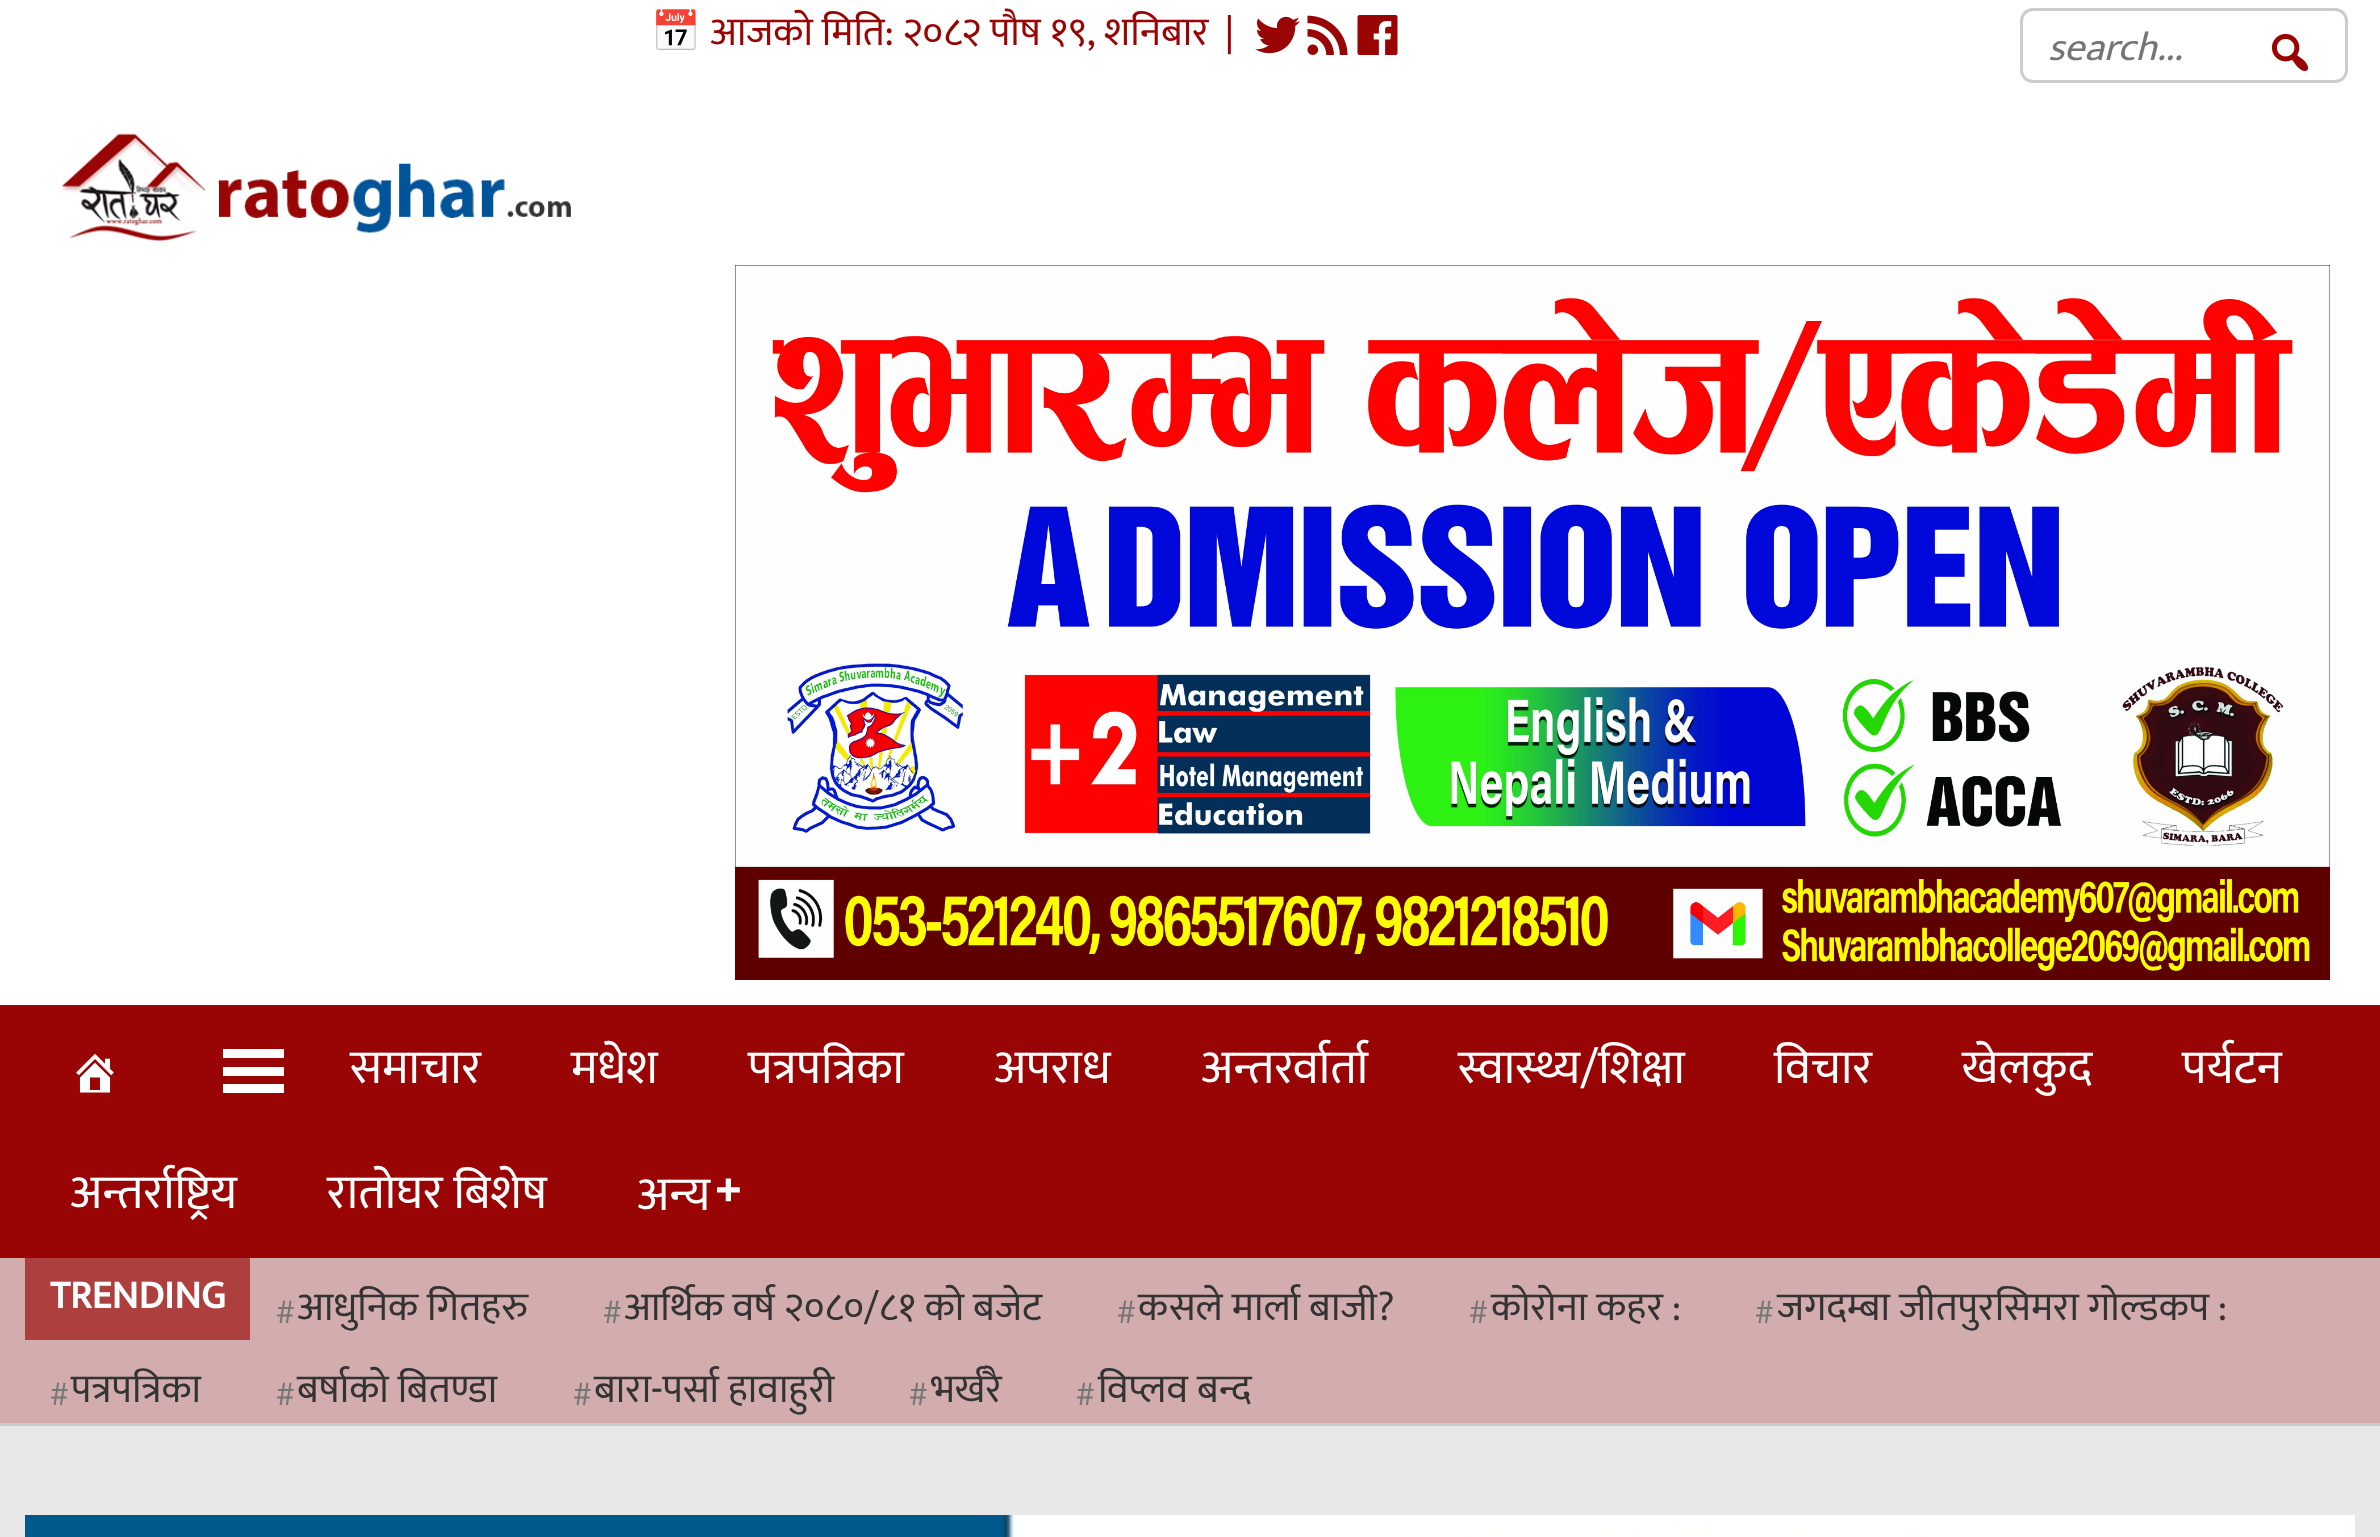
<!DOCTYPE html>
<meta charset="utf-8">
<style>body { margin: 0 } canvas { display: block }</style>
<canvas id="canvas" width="2380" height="1537"></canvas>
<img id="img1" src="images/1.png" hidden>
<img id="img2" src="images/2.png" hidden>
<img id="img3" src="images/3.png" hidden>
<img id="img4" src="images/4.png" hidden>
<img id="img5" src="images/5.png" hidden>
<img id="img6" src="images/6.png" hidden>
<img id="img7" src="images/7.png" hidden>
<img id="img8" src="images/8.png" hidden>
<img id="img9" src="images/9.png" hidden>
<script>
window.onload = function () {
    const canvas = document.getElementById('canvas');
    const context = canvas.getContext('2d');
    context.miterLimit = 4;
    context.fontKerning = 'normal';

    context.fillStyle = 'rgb(232, 232, 232)';
    context.fillRect(0, 0, 2380, 1537);
    context.fillStyle = 'rgb(255, 255, 255)';
    context.fillRect(0, 0, 2380, 1005);
    context.drawImage(document.getElementById('img1'), 1255, 16, 45, 38);
    context.drawImage(document.getElementById('img2'), 1307, 15, 41, 40);
    context.drawImage(document.getElementById('img3'), 1357, 15, 41, 40);
    context.beginPath();
    context.roundRect(2021.5, 9.5, 325, 72, 11.5);
    context.strokeStyle = 'rgb(204, 204, 204)';
    context.lineWidth = 3;
    context.stroke();
    context.drawImage(document.getElementById('img4'), 2271, 33, 38, 38);
    context.drawImage(document.getElementById('img5'), 61, 133, 510, 108);
    context.drawImage(document.getElementById('img6'), 735, 265, 1595, 715);
    context.fillStyle = 'rgb(153, 4, 4)';
    context.fillRect(0, 1005, 2380, 253);
    context.drawImage(document.getElementById('img7'), 76, 1053, 38, 40);
    context.fillStyle = 'rgb(255, 255, 255)';
    context.beginPath();
    context.moveTo(223, 1093);
    context.lineTo(284, 1093);
    context.lineTo(284, 1084);
    context.lineTo(223, 1084);
    context.closePath();
    context.moveTo(223, 1049);
    context.lineTo(223, 1058);
    context.lineTo(284, 1058);
    context.lineTo(284, 1049);
    context.closePath();
    context.moveTo(223, 1076);
    context.lineTo(284, 1076);
    context.lineTo(284, 1067);
    context.lineTo(223, 1067);
    context.closePath();
    context.fill();
    context.drawImage(document.getElementById('img8'), 716, 1178, 24, 24);
    context.fillStyle = 'rgb(211, 173, 173)';
    context.fillRect(0, 1258, 2380, 165);
    context.fillStyle = 'rgb(204, 204, 204)';
    context.fillRect(0, 1423, 2380, 3);
    context.fillStyle = 'rgb(173, 63, 63)';
    context.fillRect(25, 1258, 225, 82);
    context.drawImage(document.getElementById('img9'), 25, 1515, 2330, 22);
    context.font = '40px Noto Color Emoji';
    context.fillStyle = 'rgb(153, 4, 4)';
    context.fillText('📅', 651, 45);
    context.font = '40px Ek Mukta';
    context.fillText('आजको मिति: २०८२ पौष १९, शनिबार', 710, 45);
    context.fillText('|', 1225, 45);
    context.font = 'italic 40px Ek Mukta';
    context.fillStyle = 'rgb(117, 117, 117)';
    context.fillText('search...', 2048, 60);
    context.font = '48px Ek Mukta';
    context.fillStyle = 'rgb(255, 255, 255)';
    context.fillText('समाचार', 350, 1083);
    context.fillText('मधेश', 571, 1083);
    context.fillText('पत्रपत्रिका', 748, 1083);
    context.fillText('अपराध', 994, 1083);
    context.fillText('अन्तरर्वार्ता', 1201, 1083);
    context.fillText('स्वास्थ्य/शिक्षा', 1458, 1083);
    context.fillText('विचार', 1774, 1083);
    context.fillText('खेलकुद', 1962, 1083);
    context.fillText('पर्यटन', 2182, 1083);
    context.fillText('अन्तर्राष्ट्रिय', 70, 1208);
    context.fillText('रातोघर बिशेष', 327, 1208);
    context.fillText('अन्य', 637, 1210);
    context.font = 'bold 40px Ek Mukta';
    context.fillText('TRENDING', 50, 1308);
    context.font = '30px Ek Mukta';
    context.fillStyle = 'rgb(117, 117, 117)';
    context.fillText('#', 276, 1323);
    context.font = '40px Ek Mukta';
    context.fillStyle = 'rgb(51, 51, 51)';
    context.fillText('आधुनिक गितहरु', 297, 1320);
    context.font = '30px Ek Mukta';
    context.fillStyle = 'rgb(117, 117, 117)';
    context.fillText('#', 603, 1323);
    context.font = '40px Ek Mukta';
    context.fillStyle = 'rgb(51, 51, 51)';
    context.fillText('आर्थिक वर्ष २०८०/८१ को बजेट', 624, 1320);
    context.font = '30px Ek Mukta';
    context.fillStyle = 'rgb(117, 117, 117)';
    context.fillText('#', 1117, 1323);
    context.font = '40px Ek Mukta';
    context.fillStyle = 'rgb(51, 51, 51)';
    context.fillText('कसले मार्ला बाजी?', 1138, 1320);
    context.font = '30px Ek Mukta';
    context.fillStyle = 'rgb(117, 117, 117)';
    context.fillText('#', 1469, 1323);
    context.font = '40px Ek Mukta';
    context.fillStyle = 'rgb(51, 51, 51)';
    context.fillText('कोरोना कहर :', 1491, 1320);
    context.font = '30px Ek Mukta';
    context.fillStyle = 'rgb(117, 117, 117)';
    context.fillText('#', 1755, 1323);
    context.font = '40px Ek Mukta';
    context.fillStyle = 'rgb(51, 51, 51)';
    context.fillText('जगदम्बा जीतपुरसिमरा गोल्डकप :', 1777, 1320);
    context.font = '30px Ek Mukta';
    context.fillStyle = 'rgb(117, 117, 117)';
    context.fillText('#', 50, 1405);
    context.font = '40px Ek Mukta';
    context.fillStyle = 'rgb(51, 51, 51)';
    context.fillText('पत्रपत्रिका', 71, 1402);
    context.font = '30px Ek Mukta';
    context.fillStyle = 'rgb(117, 117, 117)';
    context.fillText('#', 276, 1405);
    context.font = '40px Ek Mukta';
    context.fillStyle = 'rgb(51, 51, 51)';
    context.fillText('बर्षाको बितण्डा', 297, 1402);
    context.font = '30px Ek Mukta';
    context.fillStyle = 'rgb(117, 117, 117)';
    context.fillText('#', 573, 1405);
    context.font = '40px Ek Mukta';
    context.fillStyle = 'rgb(51, 51, 51)';
    context.fillText('बारा-पर्सा हावाहुरी', 594, 1402);
    context.font = '30px Ek Mukta';
    context.fillStyle = 'rgb(117, 117, 117)';
    context.fillText('#', 909, 1405);
    context.font = '40px Ek Mukta';
    context.fillStyle = 'rgb(51, 51, 51)';
    context.fillText('भर्खरै', 931, 1402);
    context.font = '30px Ek Mukta';
    context.fillStyle = 'rgb(117, 117, 117)';
    context.fillText('#', 1076, 1405);
    context.font = '40px Ek Mukta';
    context.fillStyle = 'rgb(51, 51, 51)';
    context.fillText('विप्लव बन्द', 1098, 1402);
};
</script>
